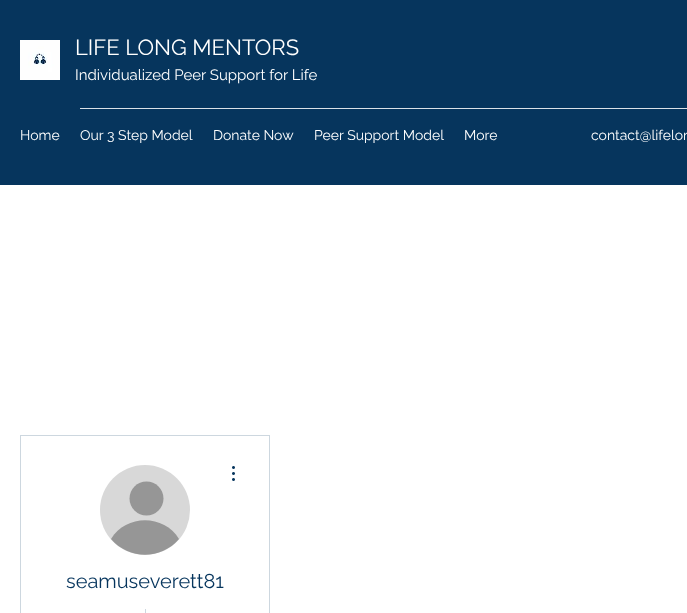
<!DOCTYPE html>
<meta charset="utf-8">
<style>body { margin: 0 } canvas { display: block }</style>
<canvas id="canvas" width="687" height="613"></canvas>
<img id="img1" src="images/1.png" hidden>
<img id="img2" src="images/2.png" hidden>
<script>
window.onload = function () {
    const canvas = document.getElementById('canvas');
    const context = canvas.getContext('2d');
    context.miterLimit = 4;
    context.fontKerning = 'normal';

    context.fillStyle = 'rgb(255, 255, 255)';
    context.fillRect(0, 0, 687, 613);
    context.fillStyle = 'rgb(6, 53, 93)';
    context.fillRect(0, 0, 687, 185);
    context.drawImage(document.getElementById('img1'), 20, 40, 40, 40);
    context.fillStyle = 'rgb(218, 225, 231)';
    context.fillRect(80, 108, 607, 1);
    context.strokeStyle = 'rgb(205, 215, 223)';
    context.strokeRect(20.5, 435.5, 249, 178);
    context.fillStyle = 'rgb(216, 216, 216)';
    context.beginPath();
    context.arc(145, 510, 45, 0, 2 * Math.PI);
    context.fill();
    context.fillStyle = 'rgb(150, 150, 150)';
    context.beginPath();
    context.arc(146.5, 498.5, 17, 0, 2 * Math.PI);
    context.fill();
    context.beginPath();
    context.moveTo(179, 539);
    context.bezierCurveTo(161, 560, 129, 560, 111, 539);
    context.bezierCurveTo(126, 514, 164, 514, 179, 539);
    context.closePath();
    context.fill();
    context.drawImage(document.getElementById('img2'), 232, 466, 3, 15);
    context.fillStyle = 'rgb(205, 215, 223)';
    context.fillRect(145, 609, 1, 4);
    context.font = '22px Raleway';
    context.fillStyle = 'rgb(255, 255, 255)';
    context.fillText('LIFE LONG MENTORS', 75, 55);
    context.font = '15px Raleway';
    context.fillText('Individualized Peer Support for Life', 75, 80);
    context.font = '14px Raleway';
    context.fillText('Home', 20, 140);
    context.fillText('Our 3 Step Model', 80, 140);
    context.fillText('Donate Now', 213, 140);
    context.fillText('Peer Support Model', 314, 140);
    context.fillText('More', 464, 140);
    context.fillText('contact@lifelon', 591, 140);
    context.font = '20px Raleway';
    context.fillStyle = 'rgb(6, 53, 93)';
    context.fillText('seamuseverett81', 66, 588);
};
</script>
